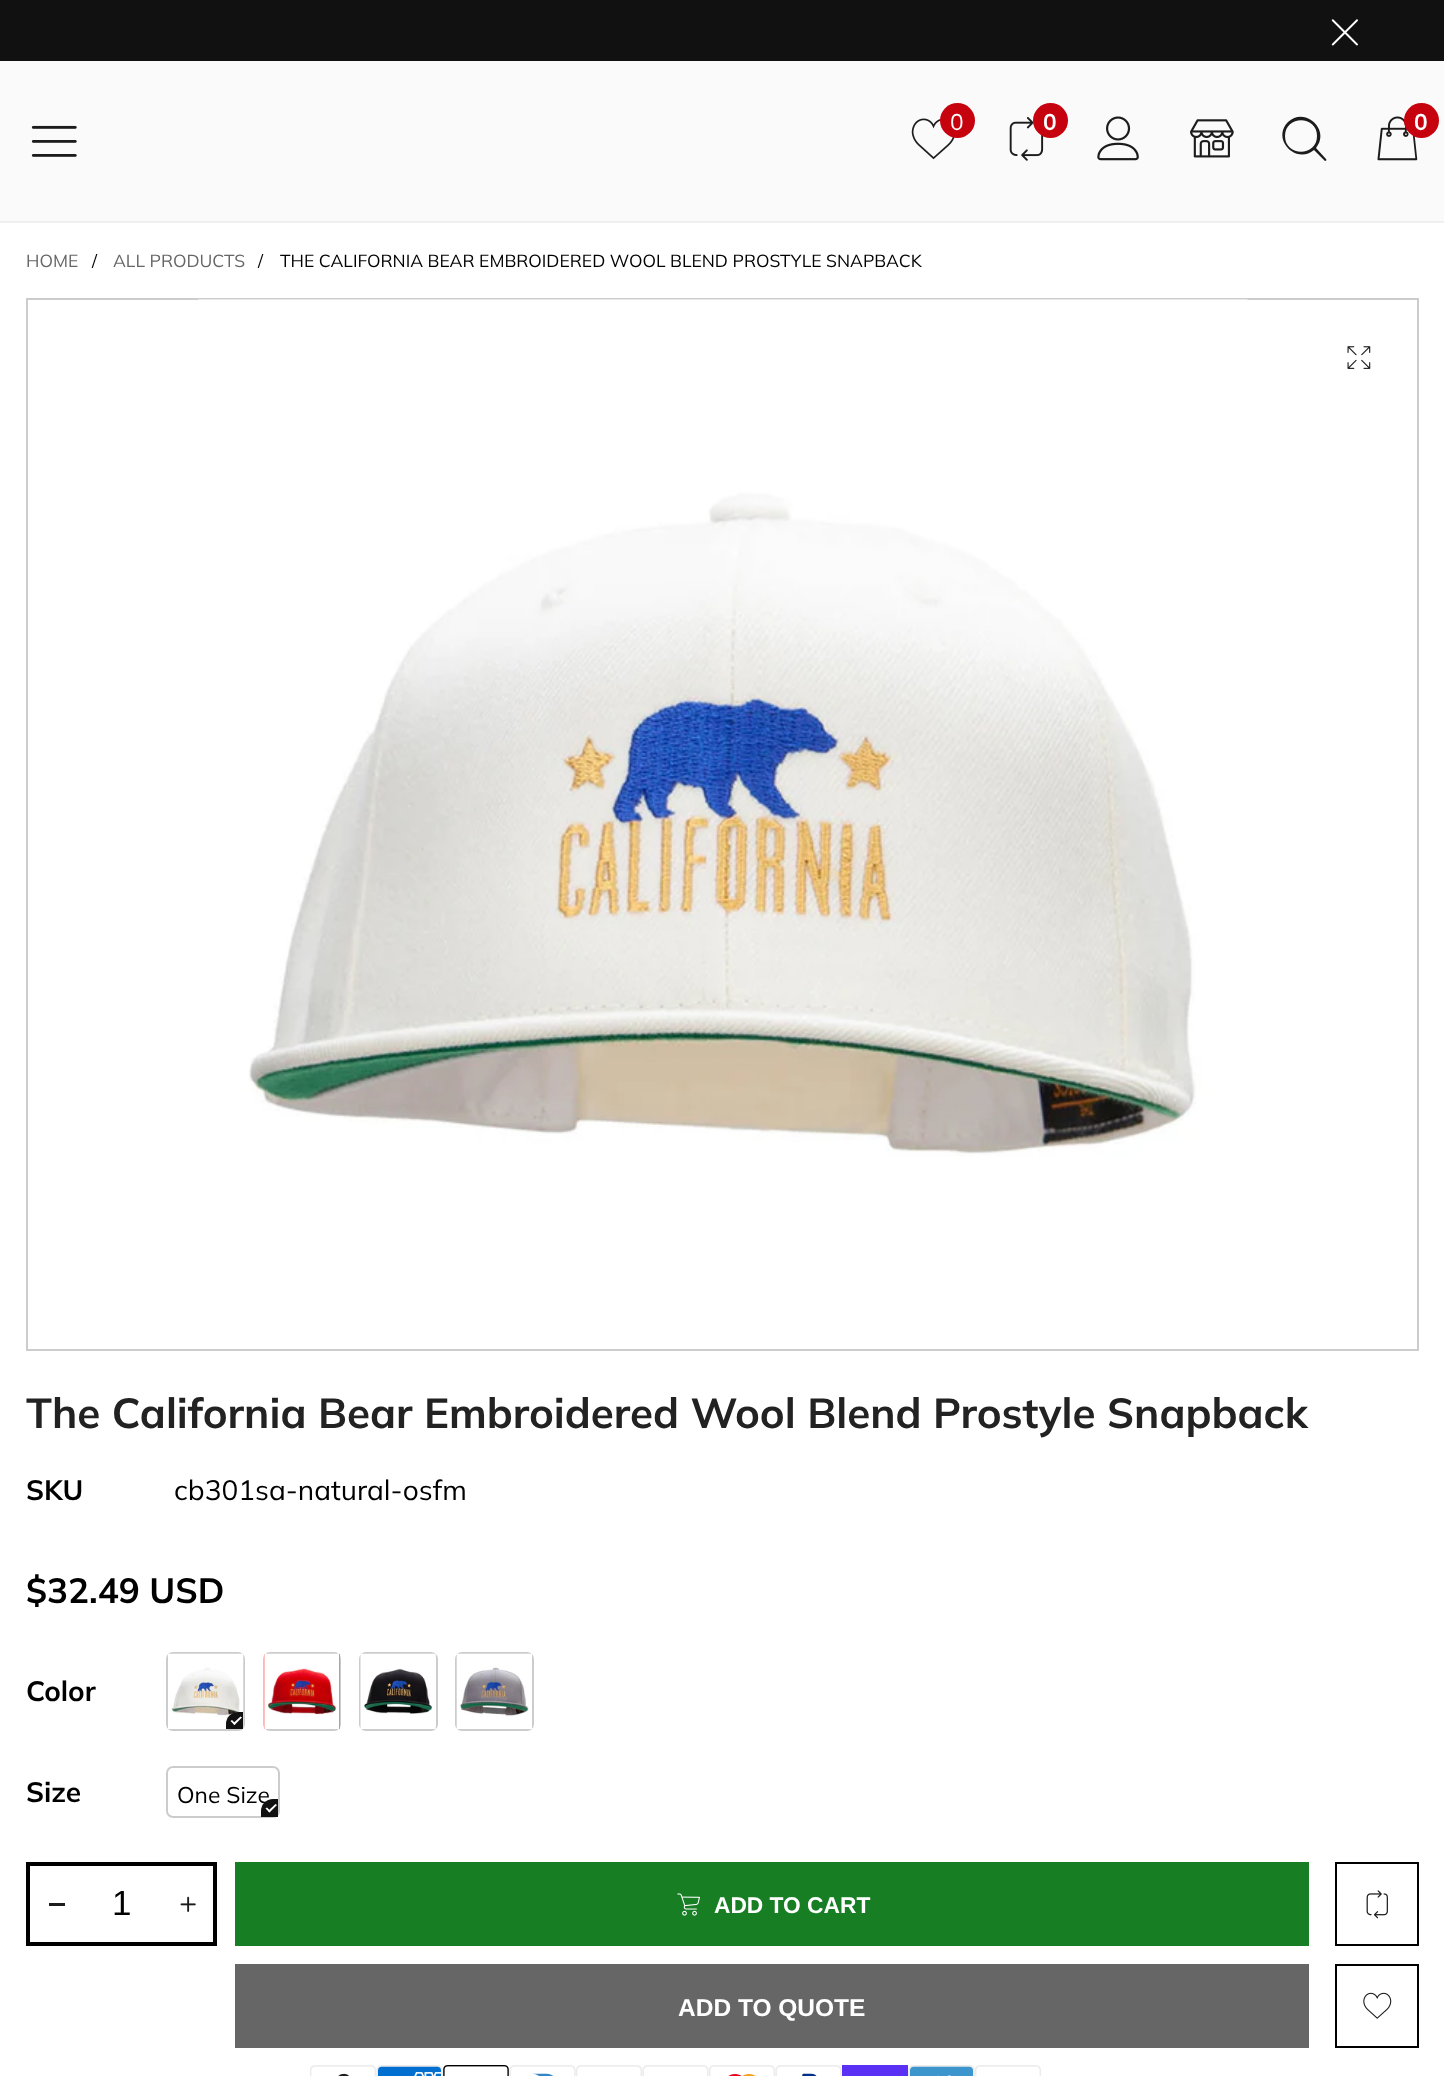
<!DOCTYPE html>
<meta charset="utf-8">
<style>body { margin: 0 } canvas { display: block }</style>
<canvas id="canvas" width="1444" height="2076"></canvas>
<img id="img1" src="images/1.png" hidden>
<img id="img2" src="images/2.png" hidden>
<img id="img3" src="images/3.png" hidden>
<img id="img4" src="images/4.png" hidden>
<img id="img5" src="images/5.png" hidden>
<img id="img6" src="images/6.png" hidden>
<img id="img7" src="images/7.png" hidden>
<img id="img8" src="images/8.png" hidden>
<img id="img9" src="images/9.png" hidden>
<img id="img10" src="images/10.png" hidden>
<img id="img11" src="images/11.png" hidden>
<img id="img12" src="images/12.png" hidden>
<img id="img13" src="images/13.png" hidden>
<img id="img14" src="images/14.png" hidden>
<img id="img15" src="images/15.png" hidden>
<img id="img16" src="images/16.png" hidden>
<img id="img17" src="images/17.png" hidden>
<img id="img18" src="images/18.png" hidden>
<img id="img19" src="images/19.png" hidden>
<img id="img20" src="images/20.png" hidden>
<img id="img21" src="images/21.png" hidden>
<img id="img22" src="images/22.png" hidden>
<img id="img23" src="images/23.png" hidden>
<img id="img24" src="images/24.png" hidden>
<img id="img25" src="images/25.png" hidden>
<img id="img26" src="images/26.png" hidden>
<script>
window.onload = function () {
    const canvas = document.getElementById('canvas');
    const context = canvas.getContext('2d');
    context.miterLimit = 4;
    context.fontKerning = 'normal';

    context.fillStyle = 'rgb(255, 255, 255)';
    context.fillRect(0, 0, 1444, 2076);
    context.fillStyle = 'rgb(242, 242, 242)';
    context.fillRect(0, 222, 1444, 1);
    context.fillStyle = 'rgb(17, 17, 17)';
    context.fillRect(0, 0, 1444, 61);
    context.drawImage(document.getElementById('img1'), 1331, 19, 27, 27);
    context.fillStyle = 'rgb(250, 250, 250)';
    context.fillRect(0, 61, 1444, 160);
    context.fillStyle = 'rgb(238, 238, 238)';
    context.fillRect(0, 221, 1444, 1);
    context.drawImage(document.getElementById('img2'), 911, 118, 44, 42);
    context.fillStyle = 'rgb(199, 2, 15)';
    context.beginPath();
    context.arc(957.5, 120.5, 17.5, 0, 2 * Math.PI);
    context.fill();
    context.drawImage(document.getElementById('img3'), 1009, 117, 35, 44);
    context.beginPath();
    context.arc(1050.5, 120.5, 17.5, 0, 2 * Math.PI);
    context.fill();
    context.drawImage(document.getElementById('img4'), 1097, 116, 42, 45);
    context.drawImage(document.getElementById('img5'), 1190, 119, 44, 39);
    context.fillStyle = 'rgb(28, 28, 28)';
    context.beginPath();
    context.moveTo(1326, 159);
    context.lineTo(1316, 148);
    context.bezierCurveTo(1331, 130, 1305, 106, 1288, 122);
    context.bezierCurveTo(1271, 139, 1296, 165, 1314, 150);
    context.lineTo(1325, 161);
    context.bezierCurveTo(1326, 161, 1327, 160, 1326, 159);
    context.closePath();
    context.moveTo(1285, 136);
    context.bezierCurveTo(1285, 115, 1317, 115, 1317, 136);
    context.bezierCurveTo(1317, 157, 1285, 157, 1285, 136);
    context.closePath();
    context.fill();
    context.drawImage(document.getElementById('img6'), 1377, 116, 41, 45);
    context.fillStyle = 'rgb(199, 2, 15)';
    context.beginPath();
    context.arc(1421.5, 120.5, 17.5, 0, 2 * Math.PI);
    context.fill();
    context.drawImage(document.getElementById('img7'), 31, 125, 46, 32);
    context.strokeStyle = 'rgb(204, 204, 204)';
    context.lineWidth = 2;
    context.strokeRect(27, 299, 1391, 1051);
    context.drawImage(document.getElementById('img8'), 198, 299, 1050, 858);
    context.drawImage(document.getElementById('img9'), 1347, 346, 24, 23);
    context.beginPath();
    context.roundRect(167, 1653, 77, 77, 6);
    context.stroke();
    context.drawImage(document.getElementById('img10'), 168, 1653, 76, 76);
    context.fillStyle = 'rgb(17, 17, 17)';
    context.beginPath();
    context.roundRect(226, 1712, 17, 17, [12, 0, 0, 0]);
    context.fill();
    context.fillStyle = 'rgb(255, 255, 255)';
    context.beginPath();
    context.moveTo(233, 1723.5);
    context.lineTo(240.5, 1716.5);
    context.lineTo(242, 1717.5);
    context.lineTo(234.5, 1725);
    context.closePath();
    context.fill();
    context.beginPath();
    context.moveTo(230.5, 1721);
    context.lineTo(232, 1720);
    context.lineTo(235.5, 1723.5);
    context.lineTo(234.5, 1725);
    context.closePath();
    context.fill();
    context.beginPath();
    context.roundRect(264, 1653, 76, 77, 6);
    context.stroke();
    context.fillStyle = 'rgb(255, 0, 0)';
    context.fillRect(264, 1654, 76, 75);
    context.drawImage(document.getElementById('img11'), 264, 1653, 76, 76);
    context.beginPath();
    context.roundRect(360, 1653, 77, 77, 6);
    context.stroke();
    context.drawImage(document.getElementById('img12'), 360, 1653, 76, 76);
    context.beginPath();
    context.roundRect(456, 1653, 77, 77, 6);
    context.stroke();
    context.drawImage(document.getElementById('img13'), 456, 1653, 76, 76);
    context.beginPath();
    context.roundRect(167, 1767, 112, 50, 6);
    context.stroke();
    context.strokeStyle = 'rgb(0, 0, 0)';
    context.lineWidth = 4;
    context.strokeRect(28, 1864, 187, 80);
    context.fillStyle = 'rgb(28, 28, 28)';
    context.fillRect(49, 1903, 16, 3);
    context.drawImage(document.getElementById('img14'), 180, 1896, 16, 16);
    context.fillStyle = 'rgb(23, 126, 36)';
    context.fillRect(235, 1862, 1074, 84);
    context.drawImage(document.getElementById('img15'), 677, 1893, 23, 23);
    context.lineWidth = 2;
    context.strokeRect(1336, 1863, 82, 82);
    context.drawImage(document.getElementById('img16'), 1366, 1890, 22, 29);
    context.fillStyle = 'rgb(102, 102, 102)';
    context.fillRect(235, 1964, 1074, 84);
    context.strokeRect(1336, 1965, 82, 82);
    context.drawImage(document.getElementById('img17'), 1363, 1992, 29, 27);
    context.drawImage(document.getElementById('img18'), 310, 2065, 66, 11);
    context.drawImage(document.getElementById('img19'), 376, 2065, 67, 11);
    context.drawImage(document.getElementById('img20'), 443, 2065, 66, 11);
    context.drawImage(document.getElementById('img21'), 509, 2065, 67, 11);
    context.drawImage(document.getElementById('img22'), 576, 2065, 66, 11);
    context.drawImage(document.getElementById('img23'), 642, 2065, 67, 11);
    context.drawImage(document.getElementById('img24'), 709, 2065, 66, 11);
    context.drawImage(document.getElementById('img25'), 775, 2065, 67, 11);
    context.fillStyle = 'rgb(90, 49, 244)';
    context.fillRect(842, 2065, 66, 11);
    context.drawImage(document.getElementById('img26'), 908, 2065, 67, 11);
    context.drawImage(document.getElementById('img22'), 975, 2065, 66, 11);
    context.font = '22.75px Muli';
    context.fillStyle = 'rgb(255, 255, 255)';
    context.fillText('0', 950, 130);
    context.font = 'bold 22.75px Muli';
    context.fillText('0', 1043, 130);
    context.fillText('0', 1414, 130);
    context.font = '17.5px Muli';
    context.fillStyle = 'rgb(102, 102, 102)';
    context.fillText('HOME', 26, 267);
    context.fillStyle = 'rgb(0, 0, 0)';
    context.fillText('/', 92, 267);
    context.fillStyle = 'rgb(102, 102, 102)';
    context.fillText('ALL PRODUCTS', 113, 267);
    context.fillStyle = 'rgb(0, 0, 0)';
    context.fillText('/', 258, 267);
    context.fillText('THE CALIFORNIA BEAR EMBROIDERED WOOL BLEND PROSTYLE SNAPBACK', 280, 267);
    context.font = 'bold 42px Muli';
    context.fillStyle = 'rgb(34, 34, 34)';
    context.fillText('The California Bear Embroidered Wool Blend Prostyle Snapback', 26, 1428);
    context.font = 'bold 28px Muli';
    context.fillStyle = 'rgb(0, 0, 0)';
    context.fillText('SKU', 26, 1500);
    context.font = '28px Muli';
    context.fillText('cb301sa-natural-osfm', 174, 1500);
    context.font = 'bold 35px Muli';
    context.fillText('$32.49 USD', 26, 1603);
    context.font = 'bold 28px Muli';
    context.fillText('Color', 26, 1701);
    context.fillText('Size', 26, 1802);
    context.font = '22.75px Muli';
    context.fillText('One Size', 177, 1803);
    context.fillStyle = 'rgb(17, 17, 17)';
    context.beginPath();
    context.roundRect(261, 1799, 17, 18, [12, 0, 0, 0]);
    context.fill();
    context.fillStyle = 'rgb(255, 255, 255)';
    context.beginPath();
    context.moveTo(268, 1811);
    context.lineTo(275.5, 1804);
    context.lineTo(277, 1805);
    context.lineTo(269.5, 1812.5);
    context.closePath();
    context.fill();
    context.beginPath();
    context.moveTo(265.5, 1808.5);
    context.lineTo(267, 1807.5);
    context.lineTo(270.5, 1811);
    context.lineTo(269.5, 1812.5);
    context.closePath();
    context.fill();
    context.font = '35px Liberation Sans';
    context.fillStyle = 'rgb(0, 0, 0)';
    context.fillText('1', 112, 1915);
    context.font = 'bold 22.75px Liberation Sans';
    context.fillStyle = 'rgb(255, 255, 255)';
    context.fillText('ADD TO CART', 714, 1913);
    context.font = 'bold 24.5px Liberation Sans';
    context.fillText('ADD TO QUOTE', 678, 2016);
};
</script>
